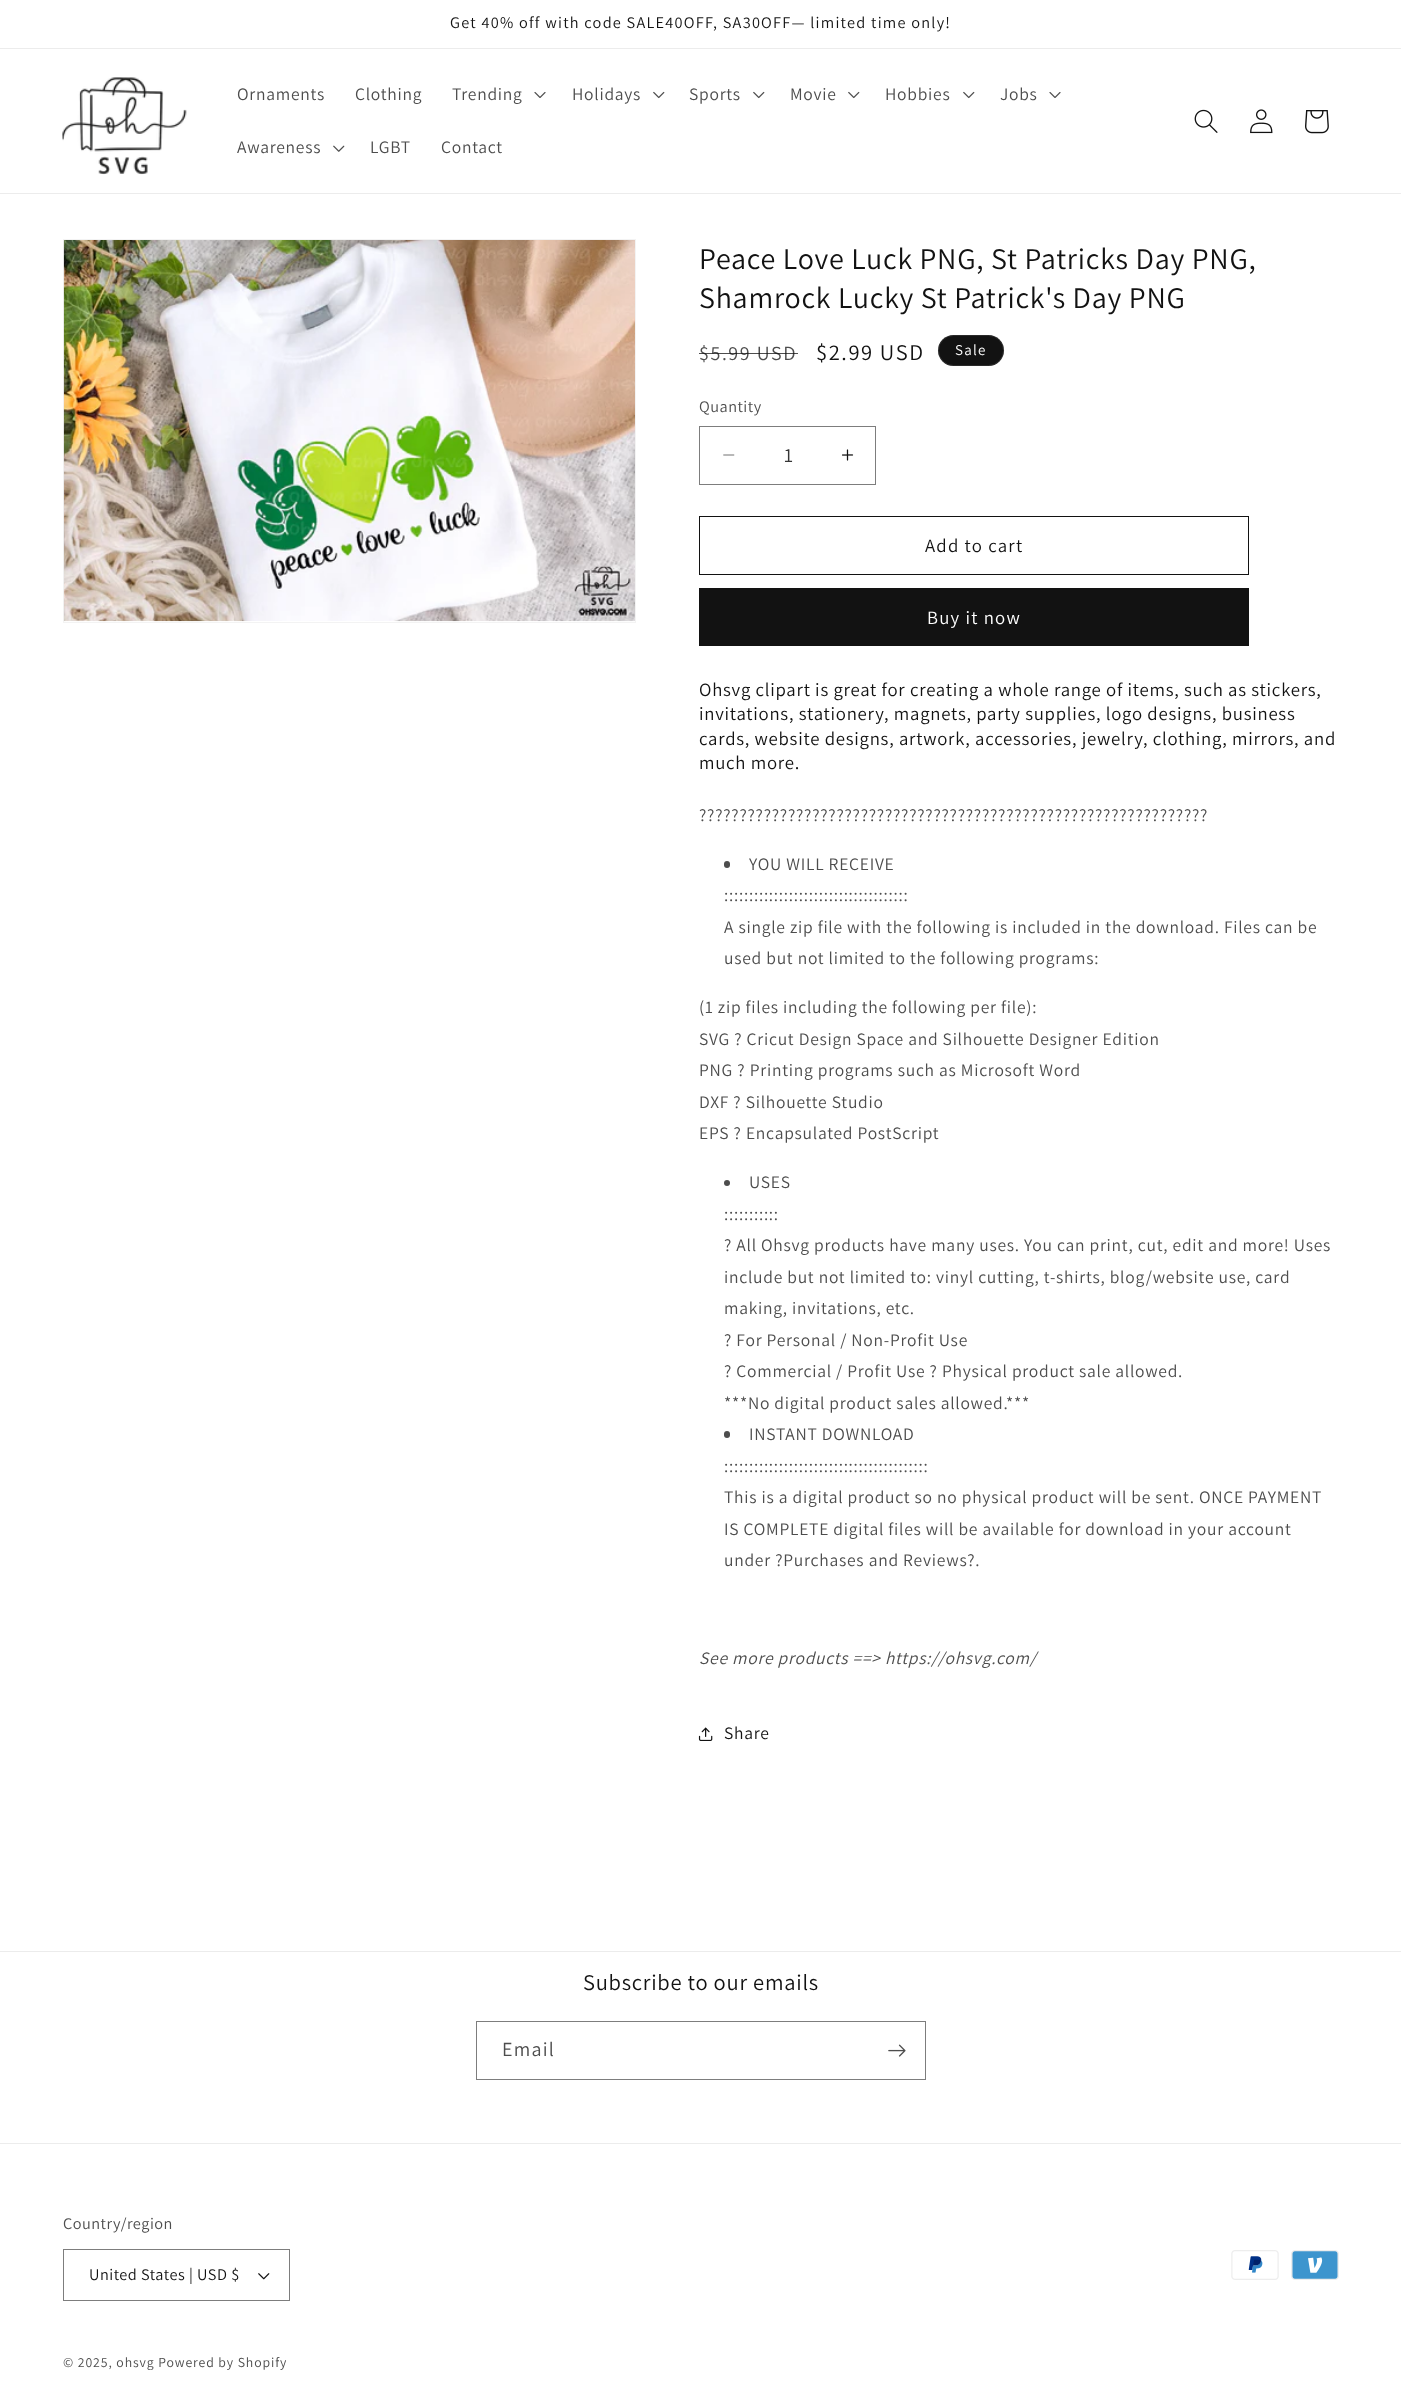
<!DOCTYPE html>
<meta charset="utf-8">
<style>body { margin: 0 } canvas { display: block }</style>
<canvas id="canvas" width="1401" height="2399"></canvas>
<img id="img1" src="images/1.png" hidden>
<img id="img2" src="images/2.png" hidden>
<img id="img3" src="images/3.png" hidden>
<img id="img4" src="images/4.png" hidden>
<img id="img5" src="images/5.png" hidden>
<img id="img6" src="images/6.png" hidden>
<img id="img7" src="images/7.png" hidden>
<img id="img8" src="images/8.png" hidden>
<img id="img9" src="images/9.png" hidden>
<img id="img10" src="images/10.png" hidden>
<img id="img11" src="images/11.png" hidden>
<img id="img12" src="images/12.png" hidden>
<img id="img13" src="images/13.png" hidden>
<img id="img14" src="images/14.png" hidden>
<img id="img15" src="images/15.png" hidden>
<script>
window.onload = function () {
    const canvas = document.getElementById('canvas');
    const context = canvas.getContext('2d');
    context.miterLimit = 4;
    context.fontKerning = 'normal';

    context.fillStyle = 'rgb(255, 255, 255)';
    context.fillRect(0, 0, 1401, 2399);
    context.fillStyle = 'rgb(236, 236, 236)';
    context.fillRect(0, 48, 1401, 1);
    context.fillRect(0, 193, 1401, 1);
    context.drawImage(document.getElementById('img1'), 62, 77, 125, 98);
    context.drawImage(document.getElementById('img2'), 534, 92, 12, 6);
    context.drawImage(document.getElementById('img3'), 653, 91, 12, 8);
    context.drawImage(document.getElementById('img3'), 753, 91, 12, 8);
    context.drawImage(document.getElementById('img3'), 848, 91, 12, 8);
    context.drawImage(document.getElementById('img3'), 963, 91, 12, 8);
    context.drawImage(document.getElementById('img2'), 1049, 92, 12, 6);
    context.drawImage(document.getElementById('img4'), 333, 145, 12, 7);
    context.drawImage(document.getElementById('img5'), 1194, 109, 24, 24);
    context.drawImage(document.getElementById('img6'), 1250, 109, 23, 25);
    context.drawImage(document.getElementById('img7'), 1305, 110, 24, 24);
    context.strokeStyle = 'rgb(243, 243, 243)';
    context.strokeRect(63.5, 239.5, 572, 383);
    context.drawImage(document.getElementById('img8'), 63, 240, 572, 382);
    context.fillStyle = 'rgb(18, 18, 18)';
    context.beginPath();
    context.roundRect(938, 335, 66, 31, 15.5);
    context.fill();
    context.beginPath();
    context.roundRect(938.5, 335.5, 65, 30, 15);
    context.strokeStyle = 'rgba(255, 255, 255, 0.1)';
    context.stroke();
    context.drawImage(document.getElementById('img9'), 723, 454, 12, 2);
    context.drawImage(document.getElementById('img10'), 842, 449, 12, 12);
    context.strokeStyle = 'rgb(125, 125, 125)';
    context.strokeRect(699.5, 426.5, 176, 58);
    context.strokeStyle = 'rgb(18, 18, 18)';
    context.strokeRect(699.5, 516.5, 549, 58);
    context.fillRect(699, 588, 550, 58);
    context.fillStyle = 'rgb(77, 77, 77)';
    context.beginPath();
    context.roundRect(724, 861, 6, 7, 3);
    context.fill();
    context.beginPath();
    context.arc(727, 1183, 3, 0, 2 * Math.PI);
    context.fill();
    context.beginPath();
    context.roundRect(724, 1431, 6, 7, 3);
    context.fill();
    context.drawImage(document.getElementById('img11'), 698, 1727, 15, 14);
    context.fillStyle = 'rgb(236, 236, 236)';
    context.fillRect(0, 1951, 1401, 1);
    context.strokeStyle = 'rgb(125, 125, 125)';
    context.strokeRect(476.5, 2021.5, 449, 58);
    context.drawImage(document.getElementById('img12'), 888, 2044, 18, 13);
    context.fillRect(0, 2143, 1401, 1);
    context.drawImage(document.getElementById('img13'), 258, 2273, 12, 7);
    context.strokeRect(63.5, 2249.5, 226, 51);
    context.drawImage(document.getElementById('img14'), 1231, 2250, 48, 30);
    context.drawImage(document.getElementById('img15'), 1291, 2250, 48, 30);
    context.letterSpacing = '1.25px';
    context.font = '16.25px Assistant';
    context.fillStyle = 'rgb(18, 18, 18)';
    context.fillText('Get 40% off with code SALE40OFF, SA30OFF— limited time only!', 450, 28);
    context.letterSpacing = '0.75px';
    context.font = '17.5px Assistant';
    context.fillStyle = 'rgb(77, 77, 77)';
    context.fillText('Ornaments', 237, 100);
    context.fillText('Clothing', 355, 100);
    context.fillText('Trending', 452, 100);
    context.fillText('Holidays', 572, 100);
    context.fillText('Sports', 689, 100);
    context.fillText('Movie', 790, 100);
    context.fillText('Hobbies', 885, 100);
    context.fillText('Jobs', 1000, 100);
    context.fillText('Awareness', 237, 153);
    context.fillText('LGBT', 370, 153);
    context.fillText('Contact', 441, 153);
    context.font = '30px Assistant';
    context.fillStyle = 'rgb(18, 18, 18)';
    context.fillText('Peace Love Luck PNG, St Patricks Day PNG,', 699, 269);
    context.fillText('Shamrock Lucky St Patrick\'s Day PNG', 699, 308);
    context.letterSpacing = '1.6px';
    context.font = '20px Assistant';
    context.fillStyle = 'rgb(77, 77, 77)';
    context.fillText('$5.99 USD', 699, 360);
    context.fillStyle = 'rgba(18, 18, 18, 0.75)';
    context.fillRect(699, 353, 99, 1);
    context.font = '22.5px Assistant';
    context.fillStyle = 'rgb(18, 18, 18)';
    context.fillText('$2.99 USD', 816, 360);
    context.letterSpacing = '1.25px';
    context.font = '15px Assistant';
    context.fillStyle = 'rgb(255, 255, 255)';
    context.fillText('Sale', 955, 355);
    context.letterSpacing = '0.5px';
    context.font = '16.25px Assistant';
    context.fillStyle = 'rgb(77, 77, 77)';
    context.fillText('Quantity', 699, 412);
    context.letterSpacing = '0px';
    context.font = '20px Assistant';
    context.fillStyle = 'rgb(54, 54, 54)';
    context.fillText('1', 784, 462);
    context.letterSpacing = '1.25px';
    context.font = '18.75px Assistant';
    context.fillStyle = 'rgb(18, 18, 18)';
    context.fillText('Add to cart', 925, 552);
    context.fillStyle = 'rgb(255, 255, 255)';
    context.fillText('Buy it now', 927, 624);
    context.letterSpacing = '0.75px';
    context.fillStyle = 'rgb(18, 18, 18)';
    context.fillText('Ohsvg clipart is great for creating a whole range of items, such as stickers,', 699, 696);
    context.fillText('invitations, stationery, magnets, party supplies, logo designs, business', 699, 720);
    context.fillText('cards, website designs, artwork, accessories, jewelry, clothing, mirrors, and', 699, 745);
    context.fillText('much more.', 699, 769);
    context.font = '17.5px Assistant';
    context.fillStyle = 'rgb(77, 77, 77)';
    context.fillText('???????????????????????????????????????????????????????????????', 699, 821);
    context.fillText('YOU WILL RECEIVE', 749, 870);
    context.fillText(':::::::::::::::::::::::::::::::::::::', 724, 901);
    context.fillText('A single zip file with the following is included in the download. Files can be', 724, 933);
    context.fillText('used but not limited to the following programs:', 724, 964);
    context.fillText('(1 zip files including the following per file):', 699, 1013);
    context.fillText('SVG ? Cricut Design Space and Silhouette Designer Edition', 699, 1045);
    context.fillText('PNG ? Printing programs such as Microsoft Word', 699, 1076);
    context.fillText('DXF ? Silhouette Studio', 699, 1108);
    context.fillText('EPS ? Encapsulated PostScript', 699, 1139);
    context.fillText('USES', 749, 1188);
    context.fillText(':::::::::::', 724, 1220);
    context.fillText('? All Ohsvg products have many uses. You can print, cut, edit and more! Uses', 724, 1251);
    context.fillText('include but not limited to: vinyl cutting, t-shirts, blog/website use, card', 724, 1283);
    context.fillText('making, invitations, etc.', 724, 1314);
    context.fillText('? For Personal / Non-Profit Use', 724, 1346);
    context.fillText('? Commercial / Profit Use ? Physical product sale allowed.', 724, 1377);
    context.fillText('***No digital product sales allowed.***', 724, 1409);
    context.fillText('INSTANT DOWNLOAD', 749, 1440);
    context.fillText(':::::::::::::::::::::::::::::::::::::::::', 724, 1472);
    context.fillText('This is a digital product so no physical product will be sent. ONCE PAYMENT', 724, 1503);
    context.fillText('IS COMPLETE digital files will be available for download in your account', 724, 1535);
    context.fillText('under ?Purchases and Reviews?.', 724, 1566);
    context.font = 'italic 17.5px Assistant';
    context.fillText('See more products ==> https://ohsvg.com/', 699, 1664);
    context.font = '17.5px Assistant';
    context.fillStyle = 'rgb(18, 18, 18)';
    context.fillText('Share', 724, 1739);
    context.font = '22.5px Assistant';
    context.fillText('Subscribe to our emails', 583, 1990);
    context.letterSpacing = '1.25px';
    context.font = '20px Assistant';
    context.fillStyle = 'rgb(77, 77, 77)';
    context.fillText('Email', 502, 2056);
    context.letterSpacing = '0.5px';
    context.font = '16.25px Assistant';
    context.fillText('Country/region', 63, 2229);
    context.fillStyle = 'rgb(18, 18, 18)';
    context.fillText('United States | USD $', 89, 2280);
    context.letterSpacing = '0.9px';
    context.font = '13.75px Assistant';
    context.fillStyle = 'rgb(77, 77, 77)';
    context.fillText('© 2025, ohsvg Powered by Shopify', 63, 2367);
};
</script>
